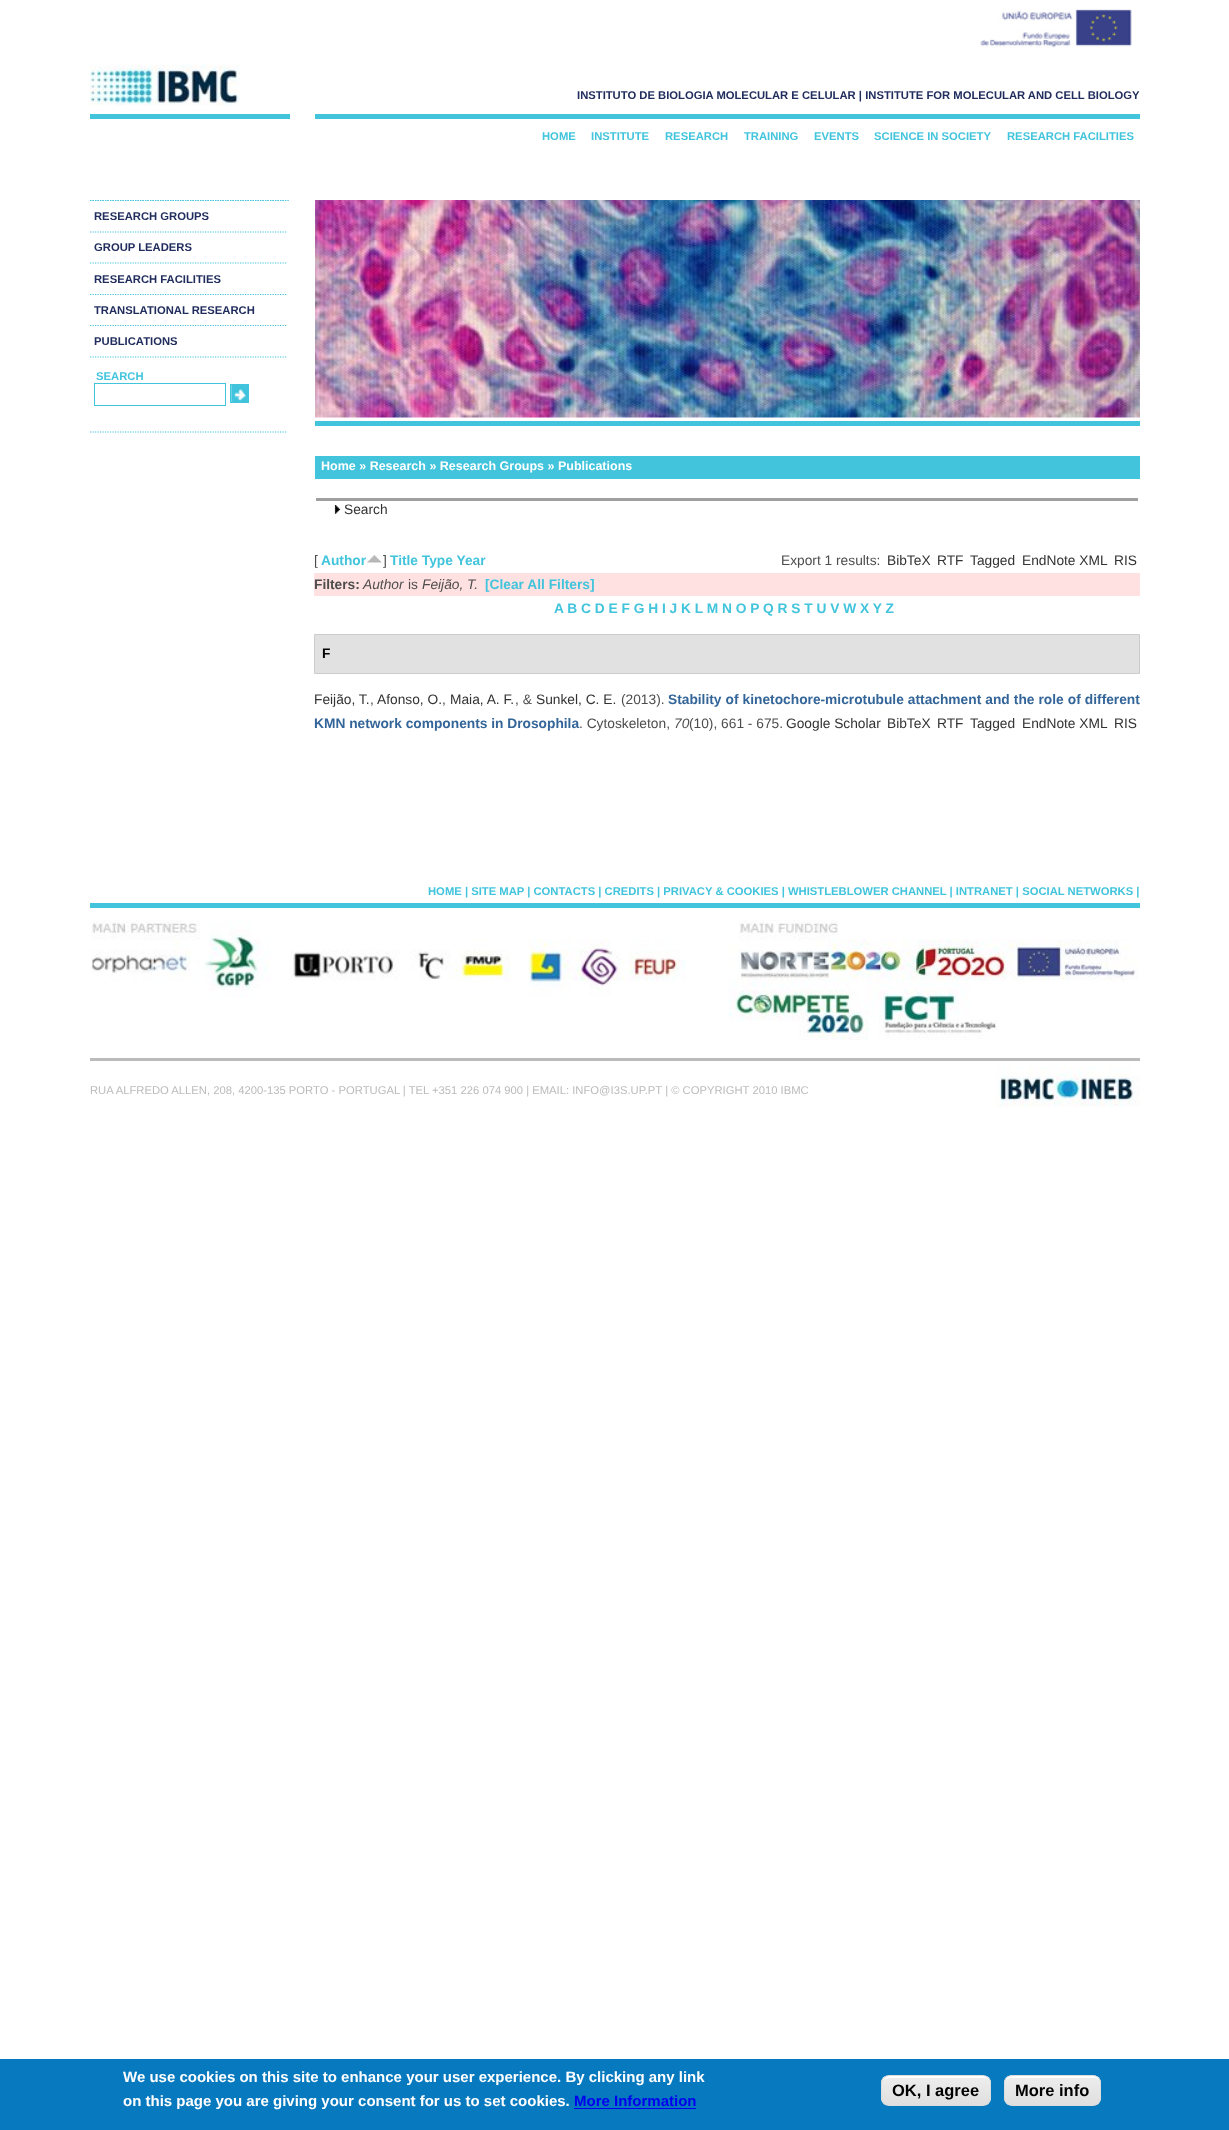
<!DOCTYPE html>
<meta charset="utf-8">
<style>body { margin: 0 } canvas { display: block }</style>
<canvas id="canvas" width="1229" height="2130"></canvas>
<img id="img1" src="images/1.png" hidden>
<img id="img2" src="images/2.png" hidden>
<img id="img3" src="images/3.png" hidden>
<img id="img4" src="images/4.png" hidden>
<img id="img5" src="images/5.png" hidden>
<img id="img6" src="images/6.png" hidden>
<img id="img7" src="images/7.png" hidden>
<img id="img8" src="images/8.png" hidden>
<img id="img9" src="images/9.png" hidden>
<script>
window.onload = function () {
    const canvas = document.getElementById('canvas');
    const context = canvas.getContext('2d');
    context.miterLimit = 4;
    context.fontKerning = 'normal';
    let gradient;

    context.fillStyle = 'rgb(255, 255, 255)';
    context.fillRect(0, 0, 1229, 2130);
    context.drawImage(document.getElementById('img1'), 980, 9, 152, 39);
    context.fillStyle = 'rgb(65, 196, 220)';
    context.fillRect(90, 114, 200, 5);
    context.drawImage(document.getElementById('img2'), 90, 64, 150, 42);
    context.fillRect(315, 114, 825, 5);
    context.beginPath();
    context.moveTo(90, 200.5);
    context.lineTo(290, 200.5);
    context.strokeStyle = 'rgb(65, 196, 220)';
    context.lineWidth = 1.2;
    context.setLineDash([1.25, 1.25]);
    context.stroke();
    context.beginPath();
    context.moveTo(90, 200.5);
    context.lineTo(287.5, 200.5);
    context.stroke();
    context.beginPath();
    context.moveTo(90, 232);
    context.lineTo(287.5, 232);
    context.stroke();
    context.beginPath();
    context.moveTo(90, 263);
    context.lineTo(287.5, 263);
    context.stroke();
    context.beginPath();
    context.moveTo(90, 294.5);
    context.lineTo(287.5, 294.5);
    context.stroke();
    context.beginPath();
    context.moveTo(90, 325.5);
    context.lineTo(287.5, 325.5);
    context.stroke();
    context.beginPath();
    context.moveTo(90, 357);
    context.lineTo(287.5, 357);
    context.stroke();
    context.beginPath();
    context.moveTo(90, 432);
    context.lineTo(287.5, 432);
    context.stroke();
    context.lineWidth = 1;
    context.setLineDash([]);
    context.strokeRect(94.5, 383.5, 131, 22);
    context.drawImage(document.getElementById('img3'), 231, 385, 17, 17);
    context.strokeRect(230.5, 384.5, 18, 18);
    context.fillRect(315, 421, 825, 5);
    context.drawImage(document.getElementById('img4'), 315, 200, 825, 218);
    context.fillRect(315, 456, 825, 23);
    context.fillStyle = 'rgb(159, 159, 159)';
    context.fillRect(316, 498, 822, 3);
    context.drawImage(document.getElementById('img5'), 334, 505, 7, 9);
    context.drawImage(document.getElementById('img6'), 367, 554, 15, 9);
    context.fillStyle = 'rgb(255, 225, 225)';
    context.fillRect(314, 573, 826, 23);
    context.fillStyle = 'rgb(225, 225, 225)';
    context.beginPath();
    context.rect(314.5, 634.5, 825, 39);
    context.fill();
    context.strokeStyle = 'rgb(204, 204, 204)';
    context.stroke();
    context.fillStyle = 'rgb(65, 196, 220)';
    context.fillRect(90, 903, 1050, 5);
    context.drawImage(document.getElementById('img7'), 91, 920, 595, 78);
    context.drawImage(document.getElementById('img8'), 729, 920, 410, 120);
    context.fillStyle = 'rgb(187, 187, 187)';
    context.fillRect(90, 1058, 1050, 3);
    context.drawImage(document.getElementById('img9'), 996, 1066, 144, 41);
    context.fillStyle = 'rgb(7, 121, 191)';
    context.fillRect(0, 2059, 1229, 71);
    context.fillStyle = 'rgb(0, 0, 238)';
    context.fillRect(574, 2108, 122, 1);
    context.save();
    context.beginPath();
    context.roundRect(881, 2075, 110, 31, 8);
    context.clip();
    gradient = context.createLinearGradient(936, 2076, 936, 2105);
    gradient.addColorStop(0.05, 'rgb(237, 237, 237)');
    gradient.addColorStop(1, 'rgb(223, 223, 223)');
    context.fillStyle = gradient;
    context.fillRect(881, 2076, 110, 29);
    context.restore();
    context.fillStyle = 'rgb(255, 255, 255)';
    context.beginPath();
    context.moveTo(889, 2078);
    context.lineTo(984, 2078);
    context.bezierCurveTo(987, 2078, 990, 2080, 990, 2084);
    context.lineTo(990, 2082);
    context.bezierCurveTo(990, 2079, 987, 2076, 984, 2076);
    context.lineTo(889, 2076);
    context.bezierCurveTo(886, 2076, 884, 2078, 883, 2080);
    context.bezierCurveTo(885, 2079, 887, 2078, 889, 2078);
    context.closePath();
    context.fill();
    context.beginPath();
    context.roundRect(881.5, 2075.5, 109, 30, 7.5);
    context.strokeStyle = 'rgb(220, 220, 220)';
    context.stroke();
    context.save();
    context.beginPath();
    context.roundRect(1004, 2075, 97, 31, 8);
    context.clip();
    gradient = context.createLinearGradient(1053, 2076, 1053, 2105);
    gradient.addColorStop(0.05, 'rgb(237, 237, 237)');
    gradient.addColorStop(1, 'rgb(223, 223, 223)');
    context.fillStyle = gradient;
    context.fillRect(1004, 2076, 97, 29);
    context.restore();
    context.beginPath();
    context.moveTo(1011, 2078);
    context.lineTo(1094, 2078);
    context.bezierCurveTo(1097, 2078, 1100, 2080, 1100, 2084);
    context.bezierCurveTo(1100, 2072, 1089, 2076, 1080, 2076);
    context.lineTo(1025, 2076);
    context.bezierCurveTo(1016, 2076, 1005, 2072, 1005, 2084);
    context.bezierCurveTo(1005, 2080, 1008, 2078, 1011, 2078);
    context.closePath();
    context.fill();
    context.beginPath();
    context.roundRect(1004.5, 2075.5, 96, 30, 7.5);
    context.stroke();
    context.font = 'bold 11.25px Liberation Sans';
    context.fillStyle = 'rgb(32, 45, 93)';
    context.fillText('INSTITUTO DE BIOLOGIA MOLECULAR E CELULAR | INSTITUTE FOR MOLECULAR AND CELL BIOLOGY', 577, 99);
    context.fillStyle = 'rgb(65, 196, 220)';
    context.fillText('HOME', 542, 140);
    context.fillText('INSTITUTE', 591, 140);
    context.fillText('RESEARCH', 665, 140);
    context.fillText('TRAINING', 744, 140);
    context.fillText('EVENTS', 814, 140);
    context.fillText('SCIENCE IN SOCIETY', 874, 140);
    context.fillText('RESEARCH FACILITIES', 1007, 140);
    context.fillStyle = 'rgb(32, 45, 93)';
    context.fillText('RESEARCH GROUPS', 94, 220);
    context.fillText('GROUP LEADERS', 94, 251);
    context.fillText('RESEARCH FACILITIES', 94, 283);
    context.fillText('TRANSLATIONAL RESEARCH', 94, 314);
    context.fillText('PUBLICATIONS', 94, 345);
    context.fillStyle = 'rgb(65, 196, 220)';
    context.fillText('SEARCH', 96, 380);
    context.font = 'bold 12.5px Liberation Sans';
    context.fillStyle = 'rgb(255, 255, 255)';
    context.fillText('Home » Research » Research Groups » Publications', 321, 470);
    context.font = '13.75px Liberation Sans';
    context.fillStyle = 'rgb(51, 51, 51)';
    context.fillText('Search', 344, 514);
    context.fillStyle = 'rgb(77, 77, 77)';
    context.fillText('[', 314, 565);
    context.font = 'bold 13.75px Liberation Sans';
    context.fillStyle = 'rgb(65, 196, 220)';
    context.fillText('Author', 321, 565);
    context.font = '13.75px Liberation Sans';
    context.fillStyle = 'rgb(77, 77, 77)';
    context.fillText(']', 383, 565);
    context.font = 'bold 13.75px Liberation Sans';
    context.fillStyle = 'rgb(65, 196, 220)';
    context.fillText('Title Type Year', 390, 565);
    context.font = '13.75px Liberation Sans';
    context.fillStyle = 'rgb(77, 77, 77)';
    context.fillText('Export 1 results:', 781, 565);
    context.fillStyle = 'rgb(51, 51, 51)';
    context.fillText('BibTeX', 887, 565);
    context.fillText('RTF', 937, 565);
    context.fillText('Tagged', 970, 565);
    context.fillText('EndNote XML', 1022, 565);
    context.fillText('RIS', 1114, 565);
    context.font = 'bold 13.75px Liberation Sans';
    context.fillStyle = 'rgb(77, 77, 77)';
    context.fillText('Filters:', 314, 589);
    context.font = 'italic 13.75px Liberation Sans';
    context.fillText('Author', 363, 589);
    context.font = '13.75px Liberation Sans';
    context.fillText('is', 408, 589);
    context.font = 'italic 13.75px Liberation Sans';
    context.fillText('Feijão, T.', 422, 589);
    context.font = 'bold 13.75px Liberation Sans';
    context.fillStyle = 'rgb(65, 196, 220)';
    context.fillText('[Clear All Filters]', 485, 589);
    context.fillText('A B C D E F G H I J K L M N O P Q R S T U V W X Y Z', 554, 613);
    context.fillStyle = 'rgb(0, 0, 0)';
    context.fillText('F', 322, 658);
    context.font = '13.75px Liberation Sans';
    context.fillStyle = 'rgb(51, 51, 51)';
    context.fillText('Feijão, T.', 314, 704);
    context.fillStyle = 'rgb(77, 77, 77)';
    context.fillText(',', 370, 704);
    context.fillStyle = 'rgb(51, 51, 51)';
    context.fillText('Afonso, O.', 377, 704);
    context.fillStyle = 'rgb(77, 77, 77)';
    context.fillText(',', 442, 704);
    context.fillStyle = 'rgb(51, 51, 51)';
    context.fillText('Maia, A. F.', 450, 704);
    context.fillStyle = 'rgb(77, 77, 77)';
    context.fillText(', &', 515, 704);
    context.fillStyle = 'rgb(51, 51, 51)';
    context.fillText('Sunkel, C. E.', 536, 704);
    context.fillStyle = 'rgb(77, 77, 77)';
    context.fillText('(2013).', 621, 704);
    context.wordSpacing = '0.25px';
    context.font = 'bold 13.75px Liberation Sans';
    context.fillStyle = 'rgb(51, 101, 153)';
    context.fillText('Stability of kinetochore-microtubule attachment and the role of different', 668, 704);
    context.wordSpacing = '0px';
    context.fillText('KMN network components in Drosophila', 314, 728);
    context.font = '13.75px Liberation Sans';
    context.fillStyle = 'rgb(77, 77, 77)';
    context.fillText('. Cytoskeleton,', 579, 728);
    context.font = 'italic 13.75px Liberation Sans';
    context.fillText('70', 674, 728);
    context.font = '13.75px Liberation Sans';
    context.fillText('(10), 661 - 675.', 689, 728);
    context.fillStyle = 'rgb(51, 51, 51)';
    context.fillText('Google Scholar', 786, 728);
    context.fillText('BibTeX', 887, 728);
    context.fillText('RTF', 937, 728);
    context.fillText('Tagged', 970, 728);
    context.fillText('EndNote XML', 1022, 728);
    context.fillText('RIS', 1114, 728);
    context.font = 'bold 11.25px Liberation Sans';
    context.fillStyle = 'rgb(65, 196, 220)';
    context.fillText('HOME | SITE MAP | CONTACTS | CREDITS | PRIVACY & COOKIES | WHISTLEBLOWER CHANNEL | INTRANET | SOCIAL NETWORKS |', 428, 895);
    context.font = '11.25px Liberation Sans';
    context.fillStyle = 'rgb(187, 187, 187)';
    context.fillText('RUA ALFREDO ALLEN, 208, 4200-135 PORTO - PORTUGAL | TEL +351 226 074 900 | EMAIL: INFO@I3S.UP.PT | © COPYRIGHT 2010 IBMC', 90, 1094);
    context.font = 'bold 15px Liberation Sans';
    context.fillStyle = 'rgb(255, 255, 255)';
    context.fillText('We use cookies on this site to enhance your user experience. By clicking any link', 123, 2082);
    context.fillText('on this page you are giving your consent for us to set cookies.', 123, 2106);
    context.fillStyle = 'rgb(0, 0, 238)';
    context.fillText('More Information', 574, 2106);
    context.font = 'bold 16.5px Liberation Sans';
    context.fillStyle = 'rgb(0, 0, 0)';
    context.fillText('OK, I agree', 892, 2096);
    context.fillText('More info', 1015, 2096);
};
</script>
